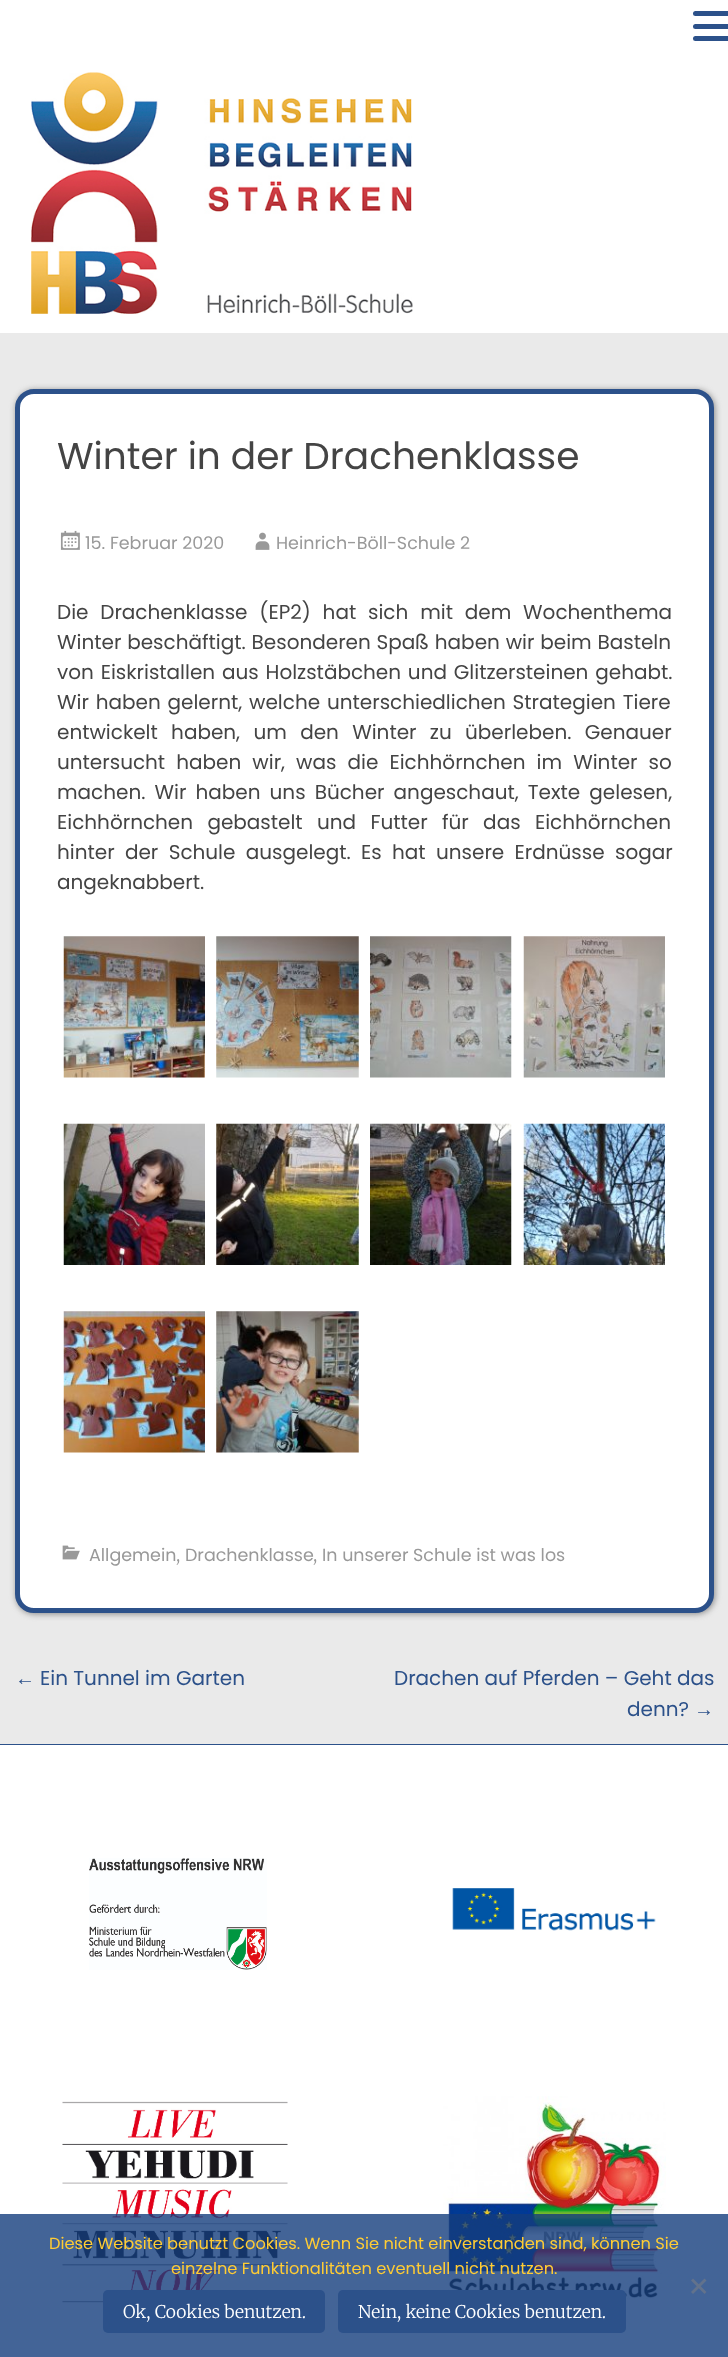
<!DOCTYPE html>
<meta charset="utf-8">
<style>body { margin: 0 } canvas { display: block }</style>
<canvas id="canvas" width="728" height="2357"></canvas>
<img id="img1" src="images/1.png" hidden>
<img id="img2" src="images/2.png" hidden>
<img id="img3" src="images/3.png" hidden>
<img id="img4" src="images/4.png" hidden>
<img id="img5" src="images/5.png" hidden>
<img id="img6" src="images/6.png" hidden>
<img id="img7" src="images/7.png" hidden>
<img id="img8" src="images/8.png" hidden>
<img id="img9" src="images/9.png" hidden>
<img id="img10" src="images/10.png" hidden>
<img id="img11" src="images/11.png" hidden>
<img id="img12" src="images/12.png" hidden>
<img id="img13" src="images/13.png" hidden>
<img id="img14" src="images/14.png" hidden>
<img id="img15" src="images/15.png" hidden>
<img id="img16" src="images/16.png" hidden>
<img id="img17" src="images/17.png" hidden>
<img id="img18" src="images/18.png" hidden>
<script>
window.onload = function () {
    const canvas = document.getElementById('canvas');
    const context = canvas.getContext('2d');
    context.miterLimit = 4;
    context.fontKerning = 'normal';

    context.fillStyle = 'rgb(255, 255, 255)';
    context.fillRect(0, 0, 728, 2357);
    context.fillStyle = 'rgb(44, 81, 138)';
    context.beginPath();
    context.roundRect(693, 11, 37, 5, 2.5);
    context.fill();
    context.beginPath();
    context.roundRect(693, 24, 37, 5, 2.5);
    context.fill();
    context.beginPath();
    context.roundRect(693, 36, 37, 5, 2.5);
    context.fill();
    context.drawImage(document.getElementById('img1'), 31, 72, 382, 242);
    context.fillStyle = 'rgb(234, 234, 234)';
    context.fillRect(0, 333, 728, 1411);
    context.fillStyle = 'rgb(136, 136, 136)';
    context.filter = 'blur(3px)';
    context.beginPath();
    context.roundRect(16, 390, 699, 1224, 19);
    context.fill();
    context.filter = 'none';
    context.fillStyle = 'rgb(255, 255, 255)';
    context.beginPath();
    context.roundRect(17.5, 391.5, 694, 1219, 16.5);
    context.fill();
    context.strokeStyle = 'rgb(44, 81, 138)';
    context.lineWidth = 5;
    context.stroke();
    context.drawImage(document.getElementById('img2'), 60, 530, 20, 20);
    context.drawImage(document.getElementById('img3'), 255, 532, 15, 18);
    context.drawImage(document.getElementById('img4'), 63, 936, 142, 142);
    context.drawImage(document.getElementById('img5'), 216, 936, 143, 142);
    context.drawImage(document.getElementById('img6'), 370, 936, 142, 142);
    context.drawImage(document.getElementById('img7'), 523, 936, 142, 142);
    context.drawImage(document.getElementById('img8'), 63, 1123, 142, 142);
    context.drawImage(document.getElementById('img9'), 216, 1123, 143, 142);
    context.drawImage(document.getElementById('img10'), 370, 1123, 142, 142);
    context.drawImage(document.getElementById('img11'), 523, 1123, 142, 142);
    context.drawImage(document.getElementById('img12'), 63, 1311, 142, 142);
    context.drawImage(document.getElementById('img13'), 216, 1311, 143, 142);
    context.drawImage(document.getElementById('img14'), 62, 1545, 18, 15);
    context.fillStyle = 'rgb(44, 81, 138)';
    context.fillRect(0, 1744, 728, 1);
    context.drawImage(document.getElementById('img15'), 89, 1858, 178, 112);
    context.drawImage(document.getElementById('img16'), 452, 1888, 204, 43);
    context.drawImage(document.getElementById('img17'), 62, 2101, 226, 202);
    context.drawImage(document.getElementById('img18'), 443, 2096, 223, 204);
    context.fillStyle = 'rgba(20, 61, 125, 0.8)';
    context.fillRect(0, 2214, 728, 143);
    context.fillStyle = 'rgb(98, 114, 140)';
    context.beginPath();
    context.moveTo(704.5, 2278.5);
    context.lineTo(706.5, 2280.5);
    context.lineTo(693, 2294);
    context.lineTo(691, 2292);
    context.closePath();
    context.fill();
    context.beginPath();
    context.moveTo(691, 2280.5);
    context.lineTo(693, 2278.5);
    context.lineTo(706.5, 2292);
    context.lineTo(704.5, 2294);
    context.closePath();
    context.fill();
    context.fillStyle = 'rgb(44, 81, 138)';
    context.beginPath();
    context.roundRect(103, 2290, 222, 43, 5);
    context.fill();
    context.beginPath();
    context.roundRect(338, 2290, 288, 43, 5);
    context.fill();
    context.font = '37.5px Poppins';
    context.fillStyle = 'rgb(68, 68, 68)';
    context.fillText('Winter in der Drachenklasse', 57, 469);
    context.font = '17.5px Poppins';
    context.fillStyle = 'rgb(153, 153, 153)';
    context.fillText('15. Februar 2020', 85, 549);
    context.fillText('Heinrich-Böll-Schule 2', 276, 549);
    context.wordSpacing = '6.5px';
    context.font = '20px Poppins';
    context.fillStyle = 'rgb(68, 68, 68)';
    context.fillText('Die Drachenklasse (EP2) hat sich mit dem Wochenthema', 57, 619);
    context.wordSpacing = '0.5px';
    context.fillText('Winter beschäftigt. Besonderen Spaß haben wir beim Basteln', 57, 649);
    context.wordSpacing = '1.5px';
    context.fillText('von Eiskristallen aus Holzstäbchen und Glitzersteinen gehabt.', 57, 679);
    context.fillText('Wir haben gelernt, welche unterschiedlichen Strategien Tiere', 57, 709);
    context.wordSpacing = '8px';
    context.fillText('entwickelt haben, um den Winter zu überleben. Genauer', 57, 739);
    context.wordSpacing = '5.75px';
    context.fillText('untersucht haben wir, was die Eichhörnchen im Winter so', 57, 769);
    context.wordSpacing = '3.75px';
    context.fillText('machen. Wir haben uns Bücher angeschaut, Texte gelesen,', 57, 799);
    context.wordSpacing = '9px';
    context.fillText('Eichhörnchen gebastelt und Futter für das Eichhörnchen', 57, 829);
    context.wordSpacing = '5px';
    context.fillText('hinter der Schule ausgelegt. Es hat unsere Erdnüsse sogar', 57, 859);
    context.wordSpacing = '0px';
    context.fillText('angeknabbert.', 57, 889);
    context.font = '17.5px Poppins';
    context.fillStyle = 'rgb(153, 153, 153)';
    context.fillText('Allgemein', 89, 1561);
    context.font = '300 17.5px Merriweather';
    context.fillText(',', 176, 1561);
    context.font = '17.5px Poppins';
    context.fillText('Drachenklasse', 185, 1561);
    context.font = '300 17.5px Merriweather';
    context.fillText(',', 313, 1561);
    context.font = '17.5px Poppins';
    context.fillText('In unserer Schule ist was los', 322, 1561);
    context.font = '20px Liberation Sans';
    context.fillStyle = 'rgb(44, 81, 138)';
    context.fillText('←', 15, 1685);
    context.font = '20px Poppins';
    context.fillText('Ein Tunnel im Garten', 40, 1685);
    context.fillText('Drachen auf Pferden – Geht das', 394, 1685);
    context.fillText('denn?', 627, 1716);
    context.font = '20px Liberation Sans';
    context.fillText('→', 694, 1716);
    context.font = '16.25px Poppins';
    context.fillStyle = 'rgb(255, 204, 52)';
    context.fillText('Diese Website benutzt Cookies. Wenn Sie nicht einverstanden sind, können Sie', 49, 2249);
    context.fillText('einzelne Funktionalitäten eventuell nicht nutzen.', 171, 2274);
    context.font = '300 17.5px Merriweather';
    context.fillStyle = 'rgb(255, 255, 255)';
    context.fillText('Ok, Cookies benutzen.', 123, 2318);
    context.fillText('Nein, keine Cookies benutzen.', 358, 2318);
};
</script>
